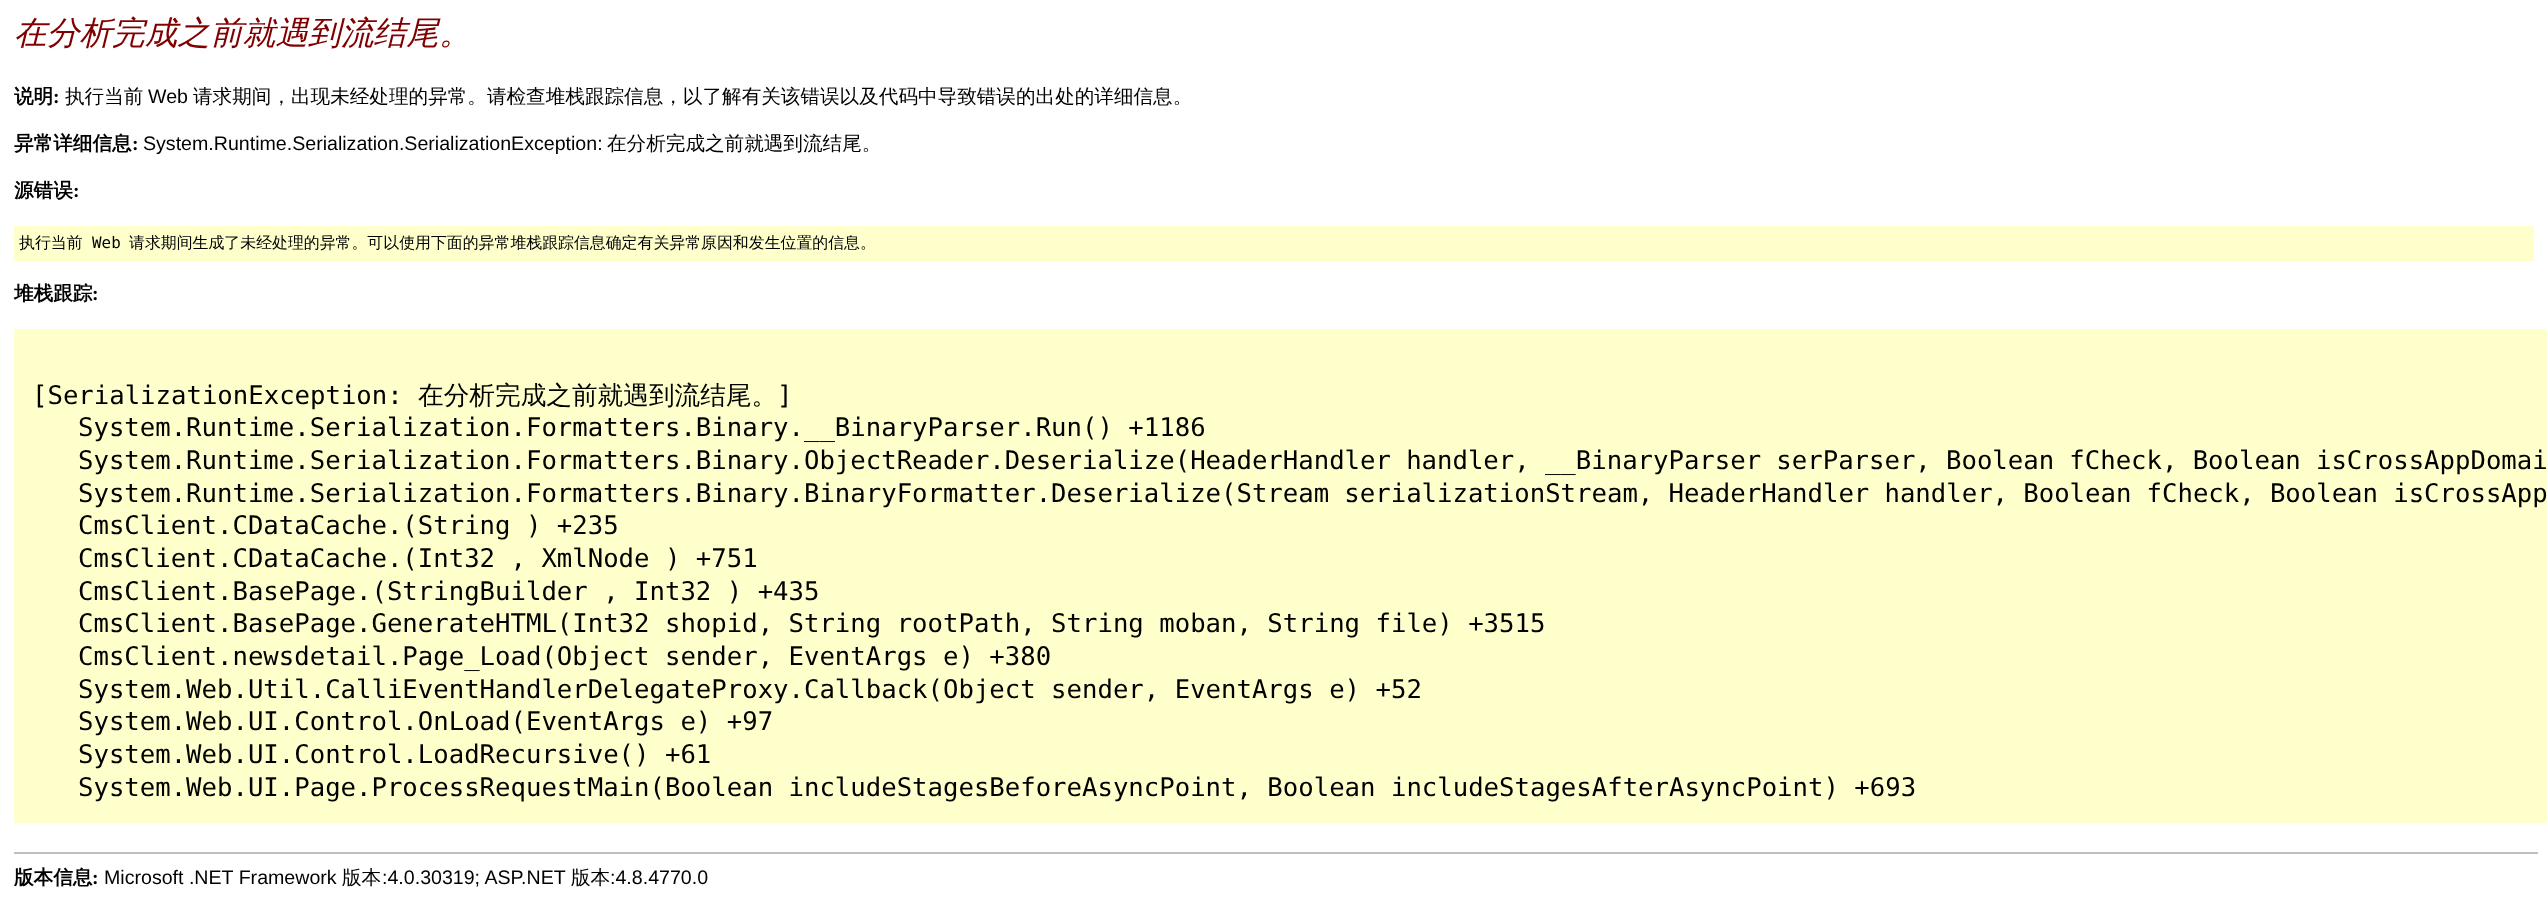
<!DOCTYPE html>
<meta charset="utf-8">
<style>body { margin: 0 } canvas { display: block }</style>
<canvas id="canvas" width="2547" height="899"></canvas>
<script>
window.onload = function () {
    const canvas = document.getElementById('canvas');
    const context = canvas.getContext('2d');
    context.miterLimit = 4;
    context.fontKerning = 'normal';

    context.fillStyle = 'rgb(255, 255, 255)';
    context.fillRect(0, 0, 2547, 899);
    context.fillStyle = 'rgb(255, 255, 204)';
    context.fillRect(14, 226, 2520, 35);
    context.fillRect(14, 329, 2533, 494);
    context.fillStyle = 'rgb(192, 192, 192)';
    context.fillRect(14, 852, 2524, 2);
    context.font = 'italic 500 32.7px WenQuanYi Zen Hei';
    context.fillStyle = 'rgb(128, 0, 0)';
    context.fillText('在分析完成之前就遇到流结尾。', 14, 44);
    context.font = 'bold 19.6px WenQuanYi Zen Hei';
    context.fillStyle = 'rgb(0, 0, 0)';
    context.fillText('说明', 14, 103);
    context.font = 'bold 19.6px Liberation Serif';
    context.fillText(':', 53, 103);
    context.font = '500 19.6px WenQuanYi Zen Hei';
    context.fillText('执行当前', 65, 103);
    context.font = '19.6px Liberation Sans';
    context.fillText('Web', 148, 103);
    context.font = '500 19.6px WenQuanYi Zen Hei';
    context.fillText('请求期间，出现未经处理的异常。请检查堆栈跟踪信息，以了解有关该错误以及代码中导致错误的出处的详细信息。', 193, 103);
    context.font = 'bold 19.6px WenQuanYi Zen Hei';
    context.fillText('异常详细信息', 14, 150);
    context.font = 'bold 19.6px Liberation Serif';
    context.fillText(':', 132, 150);
    context.font = '19.6px Liberation Sans';
    context.fillText('System.Runtime.Serialization.SerializationException:', 143, 150);
    context.font = '500 19.6px WenQuanYi Zen Hei';
    context.fillText('在分析完成之前就遇到流结尾。', 607, 150);
    context.font = 'bold 19.6px WenQuanYi Zen Hei';
    context.fillText('源错误', 14, 197);
    context.font = 'bold 19.6px Liberation Serif';
    context.fillText(':', 73, 197);
    context.font = '500 15.9px WenQuanYi Zen Hei';
    context.fillText('执行当前', 19, 248);
    context.font = '15.9px DejaVu Sans Mono';
    context.fillText('Web', 92, 248);
    context.font = '500 15.9px WenQuanYi Zen Hei';
    context.fillText('请求期间生成了未经处理的异常。可以使用下面的异常堆栈跟踪信息确定有关异常原因和发生位置的信息。', 129, 248);
    context.font = 'bold 19.6px WenQuanYi Zen Hei';
    context.fillText('堆栈跟踪', 14, 300);
    context.font = 'bold 19.6px Liberation Serif';
    context.fillText(':', 92, 300);
    context.font = '25.67px DejaVu Sans Mono';
    context.fillText('[SerializationException:', 32, 404);
    context.font = '500 25.67px WenQuanYi Zen Hei';
    context.fillText('在分析完成之前就遇到流结尾。', 418, 404);
    context.font = '25.67px DejaVu Sans Mono';
    context.fillText(']', 777, 404);
    context.fillText('System.Runtime.Serialization.Formatters.Binary.__BinaryParser.Run() +1186', 78, 436);
    context.wordSpacing = '-0.25px';
    context.fillText('System.Runtime.Serialization.Formatters.Binary.ObjectReader.Deserialize(HeaderHandler handler, __BinaryParser serParser, Boolean fCheck, Boolean isCrossAppDomai', 78, 469);
    context.fillText('System.Runtime.Serialization.Formatters.Binary.BinaryFormatter.Deserialize(Stream serializationStream, HeaderHandler handler, Boolean fCheck, Boolean isCrossApp', 78, 502);
    context.wordSpacing = '0px';
    context.fillText('CmsClient.CDataCache.(String ) +235', 78, 534);
    context.fillText('CmsClient.CDataCache.⁪⁬‍⁭‍⁬⁫⁬(Int32 , XmlNode ) +751', 78, 567);
    context.fillText('CmsClient.BasePage.(StringBuilder , Int32 ) +435', 78, 600);
    context.fillText('CmsClient.BasePage.GenerateHTML(Int32 shopid, String rootPath, String moban, String file) +3515', 78, 632);
    context.fillText('CmsClient.newsdetail.Page_Load(Object sender, EventArgs e) +380', 78, 665);
    context.fillText('System.Web.Util.CalliEventHandlerDelegateProxy.Callback(Object sender, EventArgs e) +52', 78, 698);
    context.fillText('System.Web.UI.Control.OnLoad(EventArgs e) +97', 78, 730);
    context.fillText('System.Web.UI.Control.LoadRecursive() +61', 78, 763);
    context.fillText('System.Web.UI.Page.ProcessRequestMain(Boolean includeStagesBeforeAsyncPoint, Boolean includeStagesAfterAsyncPoint) +693', 78, 796);
    context.font = 'bold 19.6px WenQuanYi Zen Hei';
    context.fillText('版本信息', 14, 884);
    context.font = 'bold 19.6px Liberation Serif';
    context.fillText(':', 92, 884);
    context.font = '19.6px Liberation Sans';
    context.fillText('Microsoft .NET Framework', 104, 884);
    context.font = '500 19.6px WenQuanYi Zen Hei';
    context.fillText('版本', 342, 884);
    context.font = '19.6px Liberation Sans';
    context.fillText(':4.0.30319; ASP.NET', 382, 884);
    context.font = '500 19.6px WenQuanYi Zen Hei';
    context.fillText('版本', 571, 884);
    context.font = '19.6px Liberation Sans';
    context.fillText(':4.8.4770.0', 610, 884);
};
</script>
